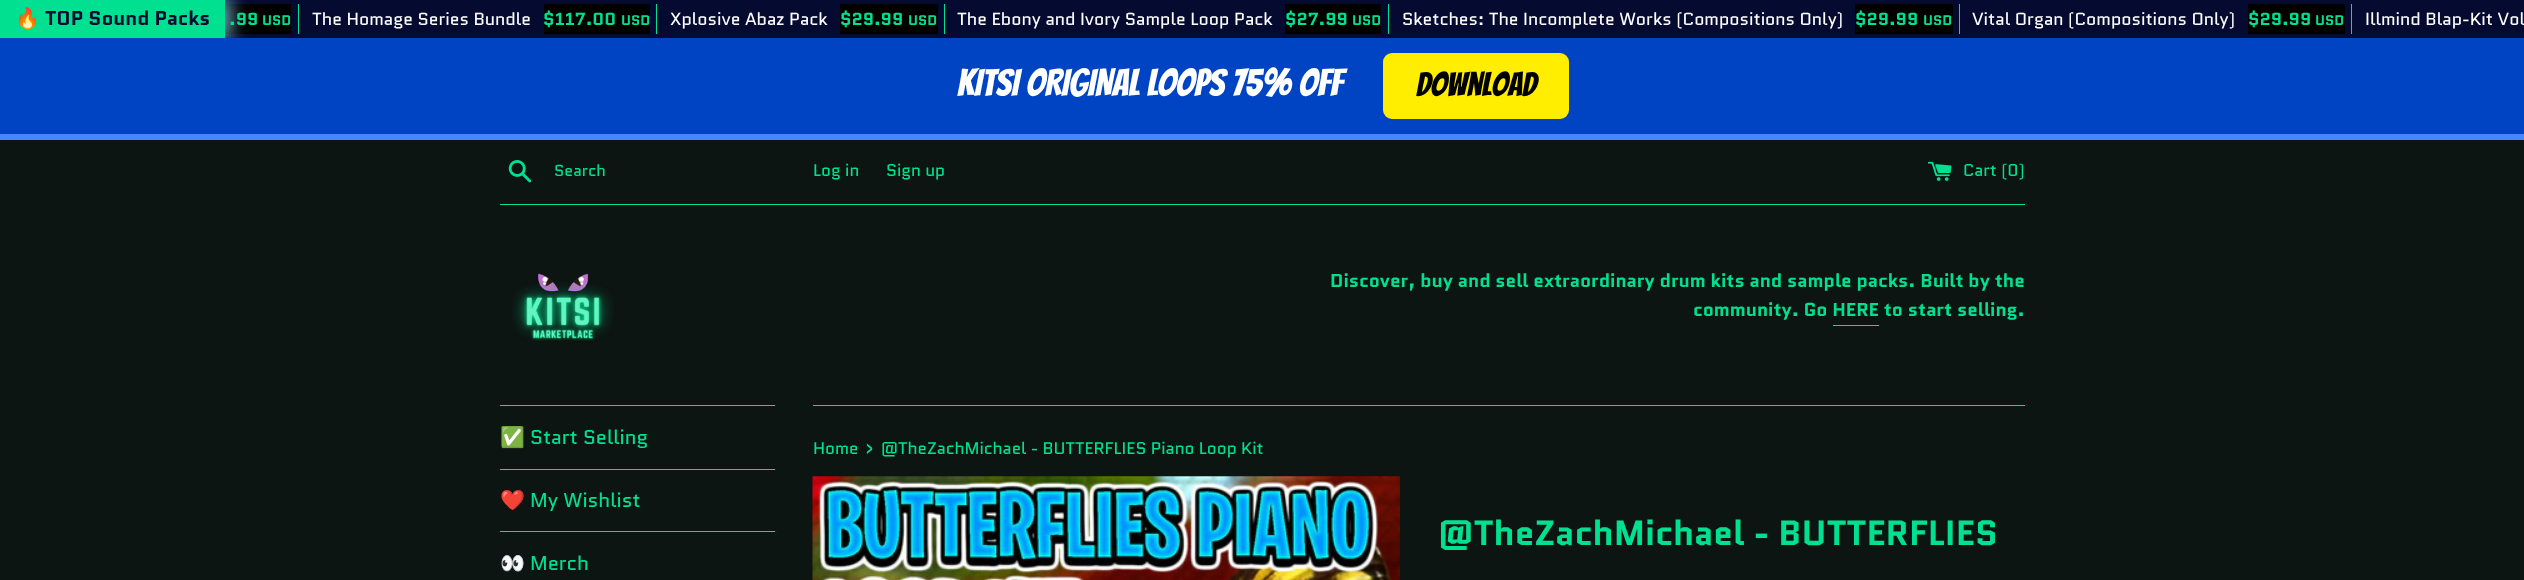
<!DOCTYPE html>
<meta charset="utf-8">
<style>body { margin: 0 } canvas { display: block }</style>
<canvas id="canvas" width="2524" height="580"></canvas>
<img id="img1" src="images/1.png" hidden>
<img id="img2" src="images/2.png" hidden>
<img id="img3" src="images/3.png" hidden>
<img id="img4" src="images/4.png" hidden>
<script>
window.onload = function () {
    const canvas = document.getElementById('canvas');
    const context = canvas.getContext('2d');
    context.miterLimit = 4;
    context.fontKerning = 'normal';

    context.fillStyle = 'rgb(13, 21, 19)';
    context.fillRect(0, 0, 2524, 580);
    context.fillStyle = 'rgb(5, 10, 48)';
    context.fillRect(225, 0, 2299, 38);
    context.fillStyle = 'rgb(0, 0, 0)';
    context.fillRect(225, 4, 66, 30);
    context.fillStyle = 'rgb(126, 200, 227)';
    context.filter = 'blur(9.5px)';
    context.beginPath();
    context.rect(-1, -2, 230, 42);
    context.fill();
    context.filter = 'none';
    context.fillStyle = 'rgb(0, 224, 145)';
    context.fillRect(0, 0, 225, 38);
    context.fillRect(298, 4, 1, 30);
    context.fillRect(656, 4, 1, 30);
    context.fillStyle = 'rgb(0, 0, 0)';
    context.fillRect(544, 4, 106, 30);
    context.fillStyle = 'rgb(0, 224, 145)';
    context.fillRect(944, 4, 1, 30);
    context.fillStyle = 'rgb(0, 0, 0)';
    context.fillRect(840, 4, 98, 30);
    context.fillStyle = 'rgb(0, 224, 145)';
    context.fillRect(1388, 4, 1, 30);
    context.fillStyle = 'rgb(0, 0, 0)';
    context.fillRect(1285, 4, 96, 30);
    context.fillStyle = 'rgb(0, 224, 145)';
    context.fillRect(1959, 4, 1, 30);
    context.fillStyle = 'rgb(0, 0, 0)';
    context.fillRect(1855, 4, 98, 30);
    context.fillStyle = 'rgb(0, 224, 145)';
    context.fillRect(2351, 4, 1, 30);
    context.fillStyle = 'rgb(0, 0, 0)';
    context.fillRect(2248, 4, 97, 30);
    context.fillStyle = 'rgb(0, 68, 195)';
    context.fillRect(0, 38, 2524, 96);
    context.fillStyle = 'rgb(255, 238, 0)';
    context.beginPath();
    context.roundRect(1383, 53, 186, 66, 9);
    context.fill();
    context.fillStyle = 'rgb(70, 135, 255)';
    context.fillRect(0, 134, 2524, 6);
    context.drawImage(document.getElementById('img1'), 508, 160, 24, 23);
    context.drawImage(document.getElementById('img2'), 1928, 161, 24, 20);
    context.fillStyle = 'rgb(0, 224, 145)';
    context.fillRect(500, 204, 1525, 1);
    context.drawImage(document.getElementById('img3'), 512, 273, 102, 68);
    context.fillRect(1833, 325, 46, 1);
    context.fillRect(500, 405, 275, 1);
    context.fillRect(500, 469, 275, 1);
    context.fillRect(500, 531, 275, 1);
    context.fillRect(813, 405, 1212, 1);
    context.drawImage(document.getElementById('img4'), 812, 476, 588, 104);
    context.font = 'bold 20px Noto Color Emoji';
    context.fillStyle = 'rgb(5, 10, 48)';
    context.fillText('🔥', 15, 25);
    context.font = 'bold 20px Quantico';
    context.fillText('TOP Sound Packs', 45, 25);
    context.font = 'bold 17.5px Quantico';
    context.fillStyle = 'rgb(0, 224, 145)';
    context.fillText('.99', 229, 25);
    context.font = 'bold 14px Quantico';
    context.fillText('USD', 262, 25);
    context.font = '17.5px Quantico';
    context.fillStyle = 'rgb(255, 255, 255)';
    context.fillText('The Homage Series Bundle', 312, 25);
    context.font = 'bold 17.5px Quantico';
    context.fillStyle = 'rgb(0, 224, 145)';
    context.fillText('$117.00', 543, 25);
    context.font = 'bold 14px Quantico';
    context.fillText('USD', 621, 25);
    context.font = '17.5px Quantico';
    context.fillStyle = 'rgb(255, 255, 255)';
    context.fillText('Xplosive Abaz Pack', 670, 25);
    context.font = 'bold 17.5px Quantico';
    context.fillStyle = 'rgb(0, 224, 145)';
    context.fillText('$29.99', 840, 25);
    context.font = 'bold 14px Quantico';
    context.fillText('USD', 908, 25);
    context.font = '17.5px Quantico';
    context.fillStyle = 'rgb(255, 255, 255)';
    context.fillText('The Ebony and Ivory Sample Loop Pack', 957, 25);
    context.font = 'bold 17.5px Quantico';
    context.fillStyle = 'rgb(0, 224, 145)';
    context.fillText('$27.99', 1285, 25);
    context.font = 'bold 14px Quantico';
    context.fillText('USD', 1352, 25);
    context.font = '17.5px Quantico';
    context.fillStyle = 'rgb(255, 255, 255)';
    context.fillText('Sketches: The Incomplete Works (Compositions Only)', 1402, 25);
    context.font = 'bold 17.5px Quantico';
    context.fillStyle = 'rgb(0, 224, 145)';
    context.fillText('$29.99', 1855, 25);
    context.font = 'bold 14px Quantico';
    context.fillText('USD', 1923, 25);
    context.font = '17.5px Quantico';
    context.fillStyle = 'rgb(255, 255, 255)';
    context.fillText('Vital Organ (Compositions Only)', 1972, 25);
    context.font = 'bold 17.5px Quantico';
    context.fillStyle = 'rgb(0, 224, 145)';
    context.fillText('$29.99', 2248, 25);
    context.font = 'bold 14px Quantico';
    context.fillText('USD', 2315, 25);
    context.font = '17.5px Quantico';
    context.fillStyle = 'rgb(255, 255, 255)';
    context.fillText('Illmind Blap-Kit Vol', 2365, 25);
    context.font = '37.5px Bangers';
    context.fillText('KITSI ORIGINAL LOOPS 75% off', 957, 96);
    context.font = '33px Bangers';
    context.fillStyle = 'rgb(0, 0, 0)';
    context.fillText('Download', 1416, 96);
    context.font = '16px Quantico';
    context.fillStyle = 'rgb(0, 224, 145)';
    context.fillText('Search', 554, 176);
    context.font = '16.9px Quantico';
    context.fillText('Log in', 813, 176);
    context.fillText('Sign up', 886, 176);
    context.fillText('Cart (0)', 1963, 176);
    context.font = 'bold 18.75px Quantico';
    context.fillText('Discover, buy and sell extraordinary drum kits and sample packs. Built by the', 1330, 287);
    context.fillText('community. Go HERE to start selling.', 1693, 316);
    context.font = '20px Noto Color Emoji';
    context.fillText('✅', 500, 444);
    context.font = '20px Quantico';
    context.fillText('Start Selling', 530, 444);
    context.font = '20px Noto Color Emoji';
    context.fillText('❤️', 500, 507);
    context.font = '20px Quantico';
    context.fillText('My Wishlist', 530, 507);
    context.font = '20px Noto Color Emoji';
    context.fillText('👀', 500, 570);
    context.font = '20px Quantico';
    context.fillText('Merch', 530, 570);
    context.font = '16.9px Quantico';
    context.fillText('Home', 813, 454);
    context.font = '21px Quantico';
    context.fillText('›', 865, 454);
    context.font = '16.9px Quantico';
    context.fillText('@TheZachMichael - BUTTERFLIES Piano Loop Kit', 881, 454);
    context.font = 'bold 35px Quantico';
    context.fillText('@TheZachMichael - BUTTERFLIES', 1438, 545);
};
</script>
